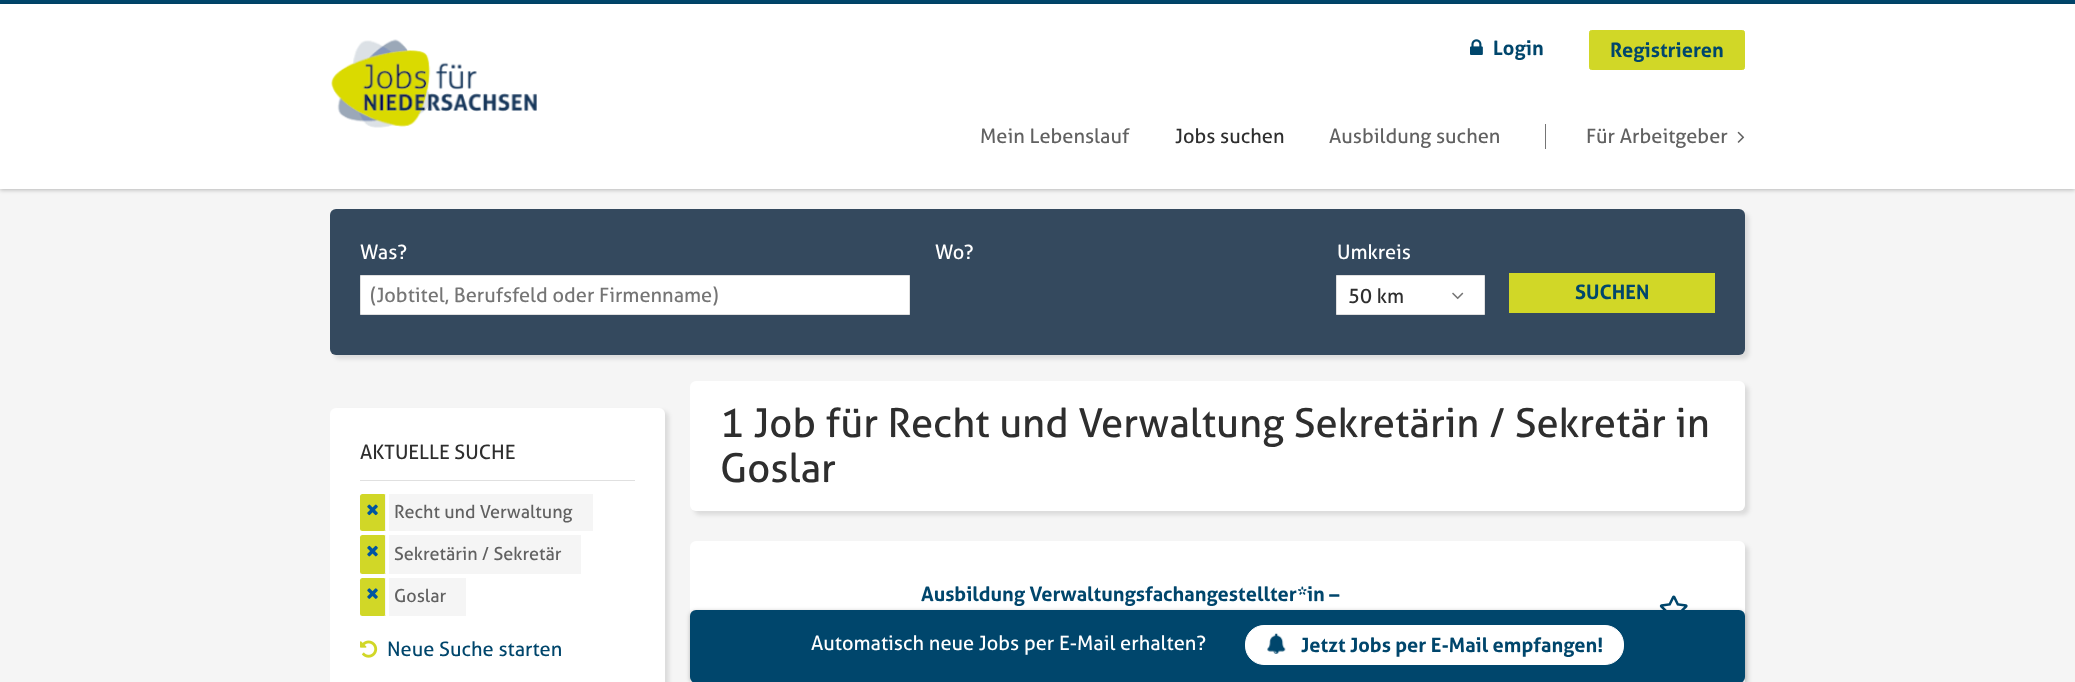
<!DOCTYPE html>
<meta charset="utf-8">
<style>body { margin: 0 } canvas { display: block }</style>
<canvas id="canvas" width="2075" height="682"></canvas>
<img id="img1" src="images/1.png" hidden>
<img id="img2" src="images/2.png" hidden>
<img id="img3" src="images/3.png" hidden>
<img id="img4" src="images/4.png" hidden>
<img id="img5" src="images/5.png" hidden>
<img id="img6" src="images/6.png" hidden>
<img id="img7" src="images/7.png" hidden>
<img id="img8" src="images/8.png" hidden>
<img id="img9" src="images/9.png" hidden>
<img id="img10" src="images/10.png" hidden>
<script>
window.onload = function () {
    const canvas = document.getElementById('canvas');
    const context = canvas.getContext('2d');
    context.miterLimit = 4;
    context.fontKerning = 'normal';

    context.fillStyle = 'rgb(245, 245, 245)';
    context.fillRect(0, 0, 2075, 682);
    context.fillStyle = 'rgb(0, 70, 108)';
    context.fillRect(0, 0, 2075, 4);
    context.fillStyle = 'rgba(0, 0, 0, 0.25)';
    context.filter = 'blur(2px)';
    context.beginPath();
    context.rect(0, 5, 2075, 185);
    context.fill();
    context.filter = 'none';
    context.fillStyle = 'rgb(255, 255, 255)';
    context.fillRect(0, 4, 2075, 185);
    context.drawImage(document.getElementById('img1'), 331, 39, 206, 89);
    context.drawImage(document.getElementById('img2'), 1470, 39, 13, 16);
    context.fillStyle = 'rgb(209, 215, 39)';
    context.beginPath();
    context.roundRect(1589.5, 30.5, 155, 39, 2);
    context.fill();
    context.strokeStyle = 'rgb(209, 215, 39)';
    context.stroke();
    context.fillStyle = 'rgb(117, 117, 117)';
    context.fillRect(1545, 124, 1, 25);
    context.drawImage(document.getElementById('img3'), 1737, 131, 8, 12);
    context.fillStyle = 'rgba(0, 0, 0, 0.1)';
    context.filter = 'blur(2px)';
    context.beginPath();
    context.roundRect(334, 213, 1415, 146, 6);
    context.fill();
    context.filter = 'none';
    context.fillStyle = 'rgb(52, 73, 94)';
    context.beginPath();
    context.roundRect(330, 209, 1415, 146, 6);
    context.fill();
    context.fillStyle = 'rgb(255, 255, 255)';
    context.beginPath();
    context.rect(360.5, 275.5, 549, 39);
    context.fill();
    context.strokeStyle = 'rgb(224, 224, 224)';
    context.stroke();
    context.beginPath();
    context.rect(1336.5, 275.5, 148, 39);
    context.fill();
    context.stroke();
    context.drawImage(document.getElementById('img4'), 1452, 292, 12, 8);
    context.fillStyle = 'rgb(209, 215, 39)';
    context.fillRect(1509, 273, 206, 40);
    context.fillStyle = 'rgba(0, 0, 0, 0.1)';
    context.filter = 'blur(2px)';
    context.beginPath();
    context.roundRect(334, 411, 335, 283, 6);
    context.fill();
    context.filter = 'none';
    context.fillStyle = 'rgb(255, 255, 255)';
    context.beginPath();
    context.roundRect(330, 408, 335, 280, 6);
    context.fill();
    context.fillStyle = 'rgb(224, 224, 224)';
    context.fillRect(360, 480, 275, 1);
    context.fillStyle = 'rgb(209, 215, 39)';
    context.beginPath();
    context.roundRect(360, 494, 26, 37, 2.5);
    context.fill();
    context.fillStyle = 'rgb(245, 245, 245)';
    context.fillRect(385, 495, 1, 35);
    context.drawImage(document.getElementById('img5'), 367, 504, 11, 12);
    context.fillRect(389, 494, 204, 37);
    context.fillStyle = 'rgb(209, 215, 39)';
    context.beginPath();
    context.roundRect(360, 535, 26, 39, 2.5);
    context.fill();
    context.fillStyle = 'rgb(245, 245, 245)';
    context.fillRect(385, 536, 1, 37);
    context.drawImage(document.getElementById('img6'), 367, 545, 11, 12);
    context.fillRect(389, 535, 192, 39);
    context.fillStyle = 'rgb(209, 215, 39)';
    context.beginPath();
    context.roundRect(360, 578, 26, 38, 2.5);
    context.fill();
    context.fillStyle = 'rgb(245, 245, 245)';
    context.fillRect(385, 579, 1, 36);
    context.drawImage(document.getElementById('img7'), 367, 588, 11, 11);
    context.fillRect(389, 578, 77, 38);
    context.drawImage(document.getElementById('img8'), 360, 640, 18, 18);
    context.fillStyle = 'rgba(0, 0, 0, 0.1)';
    context.filter = 'blur(2px)';
    context.beginPath();
    context.roundRect(694, 385, 1055, 130, 6);
    context.fill();
    context.filter = 'none';
    context.fillStyle = 'rgb(255, 255, 255)';
    context.beginPath();
    context.roundRect(690, 381, 1055, 130, 6);
    context.fill();
    context.fillStyle = 'rgba(0, 0, 0, 0.1)';
    context.filter = 'blur(2px)';
    context.beginPath();
    context.roundRect(694, 545, 1055, 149, 6);
    context.fill();
    context.filter = 'none';
    context.fillStyle = 'rgb(255, 255, 255)';
    context.beginPath();
    context.roundRect(690, 541, 1055, 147, 6);
    context.fill();
    context.drawImage(document.getElementById('img9'), 1659, 595, 29, 15);
    context.fillStyle = 'rgba(0, 0, 0, 0.25)';
    context.filter = 'blur(2px)';
    context.beginPath();
    context.roundRect(690, 611, 1055, 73, 6);
    context.fill();
    context.filter = 'none';
    context.fillStyle = 'rgb(0, 70, 108)';
    context.beginPath();
    context.roundRect(690, 610, 1055, 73, 6);
    context.fill();
    context.fillStyle = 'rgb(255, 255, 255)';
    context.beginPath();
    context.roundRect(1245.5, 625.5, 378, 39, 18.5);
    context.fill();
    context.strokeStyle = 'rgb(255, 255, 255)';
    context.stroke();
    context.drawImage(document.getElementById('img10'), 1267, 633, 19, 21);
    context.font = 'bold 20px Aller';
    context.fillStyle = 'rgb(0, 70, 108)';
    context.fillText('Login', 1493, 55);
    context.fillText('Registrieren', 1610, 57);
    context.font = '20px Aller';
    context.fillStyle = 'rgb(97, 97, 97)';
    context.fillText('Mein Lebenslauf', 980, 143);
    context.fillStyle = 'rgb(46, 46, 46)';
    context.fillText('Jobs suchen', 1175, 143);
    context.fillStyle = 'rgb(97, 97, 97)';
    context.fillText('Ausbildung suchen', 1329, 143);
    context.fillText('Für Arbeitgeber', 1586, 143);
    context.fillStyle = 'rgb(255, 255, 255)';
    context.fillText('Was?', 360, 259);
    context.fillStyle = 'rgb(117, 117, 117)';
    context.fillText('(Jobtitel, Berufsfeld oder Firmenname)', 370, 302);
    context.fillStyle = 'rgb(255, 255, 255)';
    context.fillText('Wo?', 935, 259);
    context.fillText('Umkreis', 1337, 259);
    context.fillStyle = 'rgb(46, 46, 46)';
    context.fillText('50 km', 1348, 303);
    context.font = 'bold 20px Aller';
    context.fillStyle = 'rgb(0, 70, 108)';
    context.fillText('SUCHEN', 1575, 299);
    context.font = '20px Aller';
    context.fillStyle = 'rgb(46, 46, 46)';
    context.fillText('AKTUELLE SUCHE', 360, 459);
    context.font = '18px Aller';
    context.fillStyle = 'rgb(97, 97, 97)';
    context.fillText('Recht und Verwaltung', 394, 518);
    context.fillText('Sekretärin / Sekretär', 394, 560);
    context.fillText('Goslar', 394, 602);
    context.font = '20px Aller';
    context.fillStyle = 'rgb(0, 70, 108)';
    context.fillText('Neue Suche starten', 387, 656);
    context.font = '40px Aller';
    context.fillStyle = 'rgb(46, 46, 46)';
    context.fillText('1 Job für Recht und Verwaltung Sekretärin / Sekretär in', 720, 437);
    context.fillText('Goslar', 720, 482);
    context.font = 'bold 20px Aller';
    context.fillStyle = 'rgb(0, 70, 108)';
    context.fillText('Ausbildung Verwaltungsfachangestellter*in –', 921, 601);
    context.font = '20px Aller';
    context.fillStyle = 'rgb(255, 255, 255)';
    context.fillText('Automatisch neue Jobs per E-Mail erhalten?', 811, 650);
    context.font = 'bold 20px Aller';
    context.fillStyle = 'rgb(0, 70, 108)';
    context.fillText('Jetzt Jobs per E-Mail empfangen!', 1301, 652);
};
</script>
